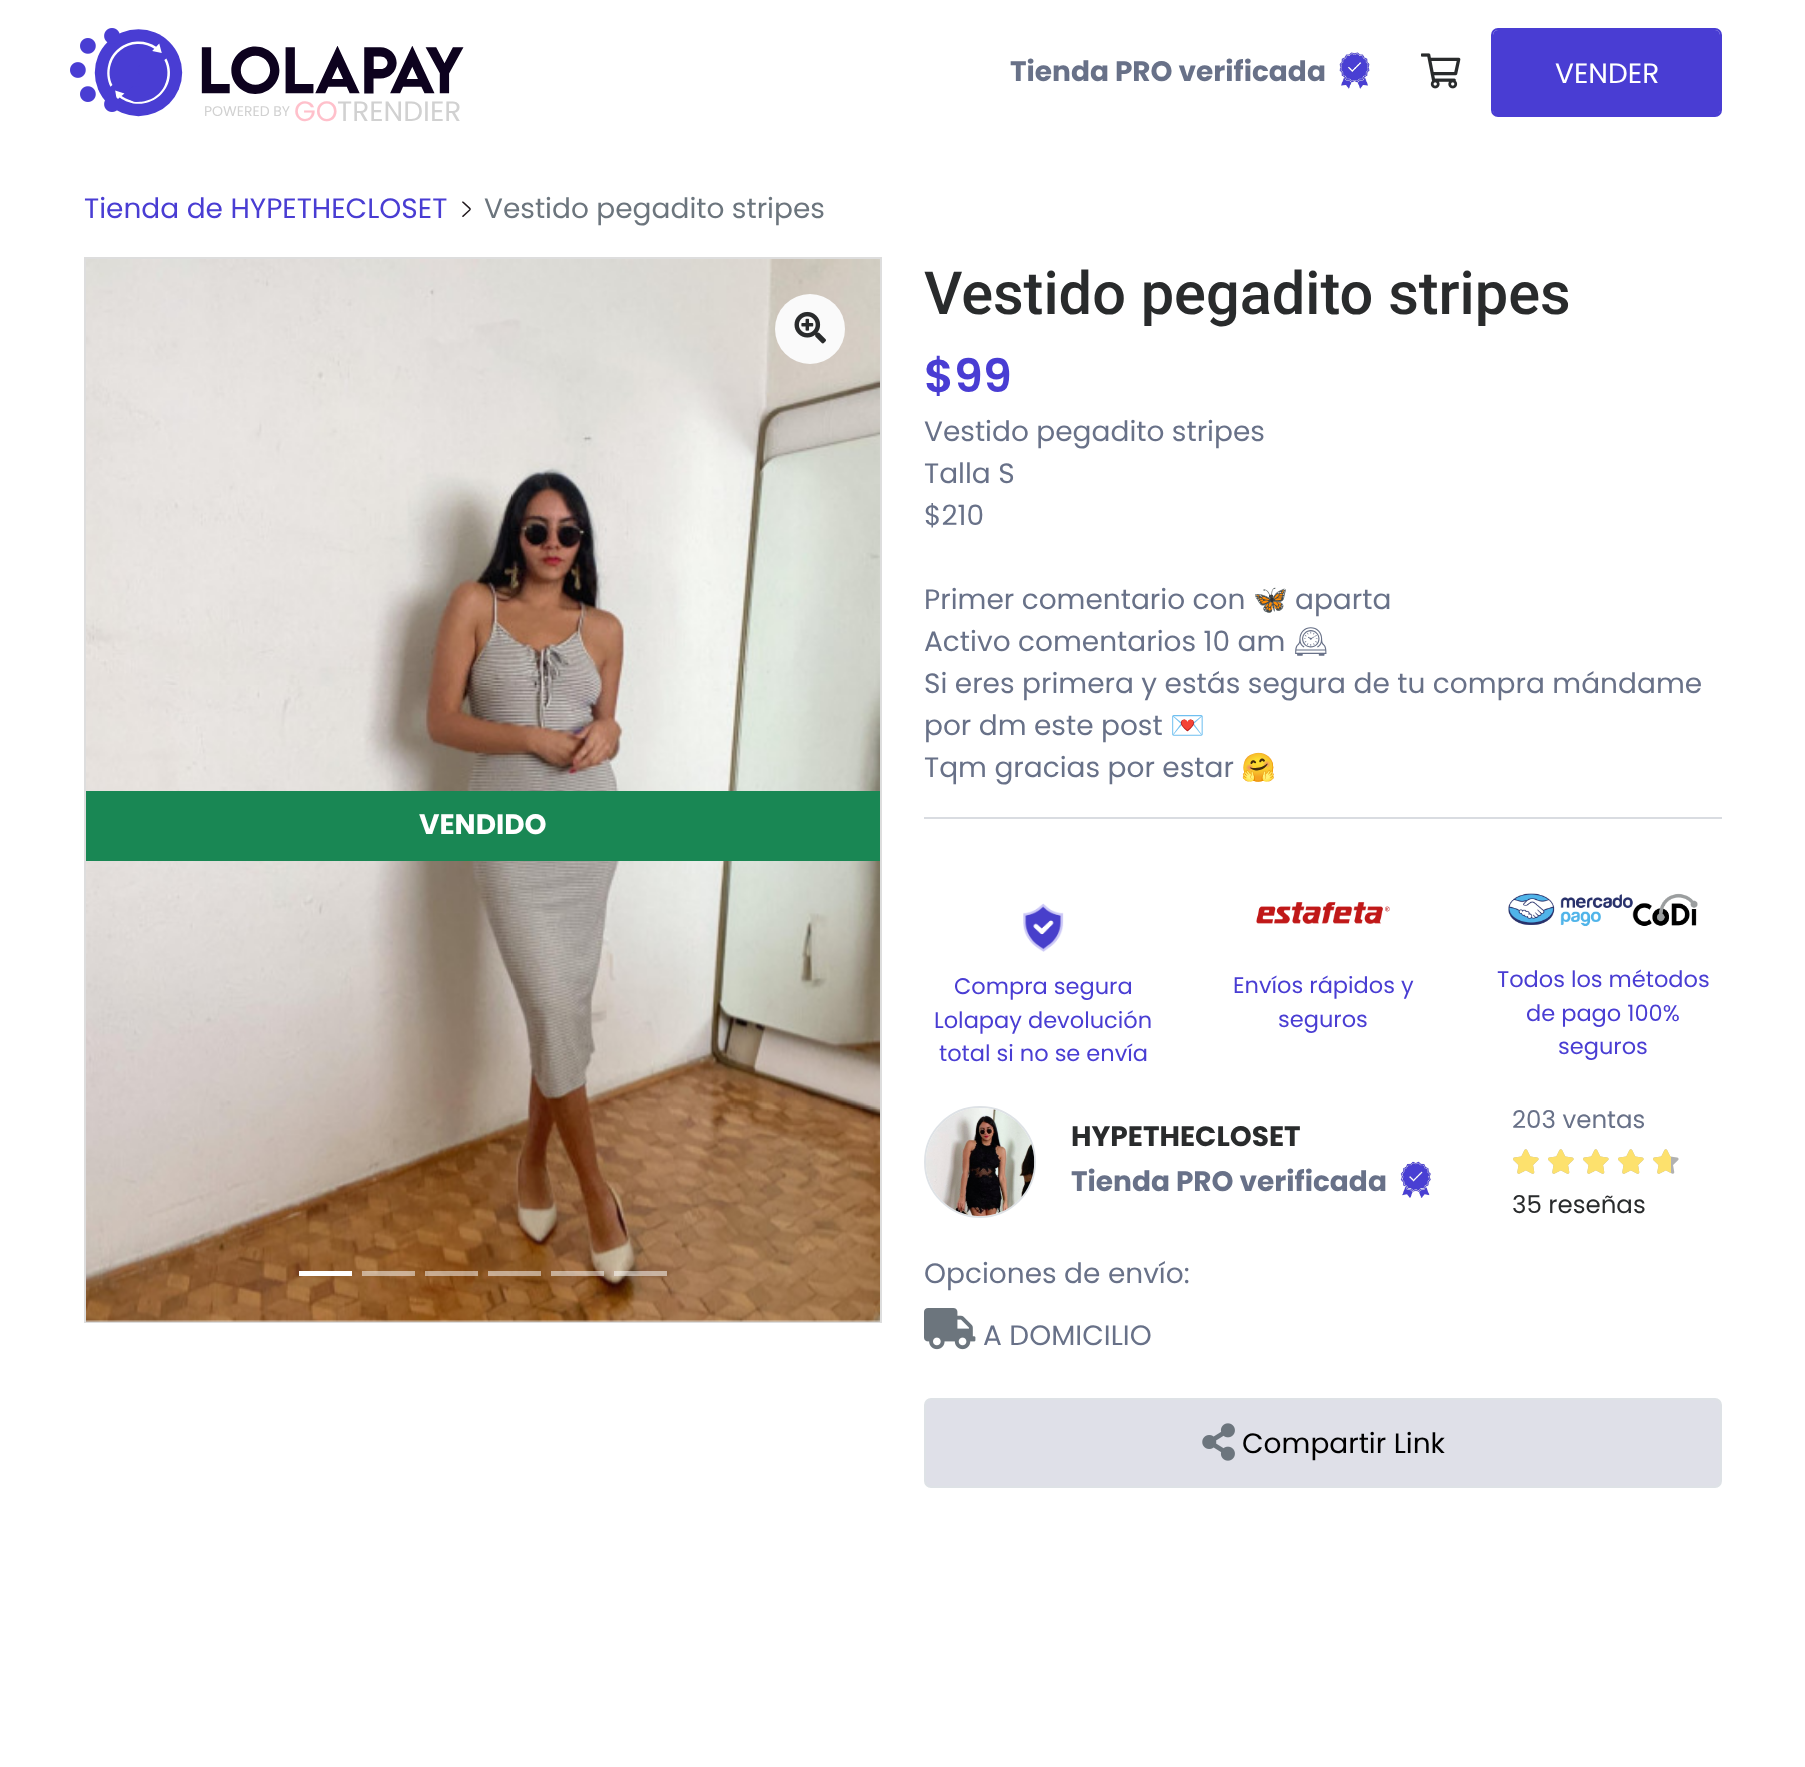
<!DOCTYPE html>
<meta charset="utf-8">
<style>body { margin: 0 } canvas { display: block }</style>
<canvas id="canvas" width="1805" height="1767"></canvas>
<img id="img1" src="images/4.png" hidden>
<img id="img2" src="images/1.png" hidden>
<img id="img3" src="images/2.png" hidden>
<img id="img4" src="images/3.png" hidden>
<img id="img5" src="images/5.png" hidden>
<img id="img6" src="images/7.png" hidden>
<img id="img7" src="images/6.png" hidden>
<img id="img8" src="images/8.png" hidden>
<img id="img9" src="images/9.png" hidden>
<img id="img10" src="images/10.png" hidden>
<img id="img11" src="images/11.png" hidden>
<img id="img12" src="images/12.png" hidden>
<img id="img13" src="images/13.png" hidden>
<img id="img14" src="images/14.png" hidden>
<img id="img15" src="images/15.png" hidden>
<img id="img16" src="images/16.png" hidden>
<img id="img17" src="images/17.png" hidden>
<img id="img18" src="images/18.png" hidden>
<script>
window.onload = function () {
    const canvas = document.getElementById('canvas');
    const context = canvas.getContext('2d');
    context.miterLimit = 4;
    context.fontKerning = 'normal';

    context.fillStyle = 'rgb(255, 255, 255)';
    context.fillRect(0, 0, 1805, 1767);
    context.drawImage(document.getElementById('img1'), 94, 29, 370, 88);
    context.drawImage(document.getElementById('img2'), 70, 28, 70, 84);
    context.drawImage(document.getElementById('img3'), 1339, 52, 31, 37);
    context.drawImage(document.getElementById('img4'), 1421, 53, 40, 36);
    context.beginPath();
    context.roundRect(1492, 29, 229, 87, 6);
    context.strokeStyle = 'rgb(73, 61, 211)';
    context.lineWidth = 2;
    context.stroke();
    context.fillStyle = 'rgb(73, 61, 211)';
    context.beginPath();
    context.roundRect(1493, 30, 117, 86, [5, 0, 0, 5]);
    context.fill();
    context.beginPath();
    context.roundRect(1605, 30, 115, 86, [0, 5, 5, 0]);
    context.fill();
    context.drawImage(document.getElementById('img5'), 462, 201, 9, 16);
    context.strokeStyle = 'rgb(221, 221, 221)';
    context.strokeRect(85, 258, 796, 1064);
    context.drawImage(document.getElementById('img6'), 86, 259, 794, 1063);
    context.fillStyle = 'rgb(250, 250, 250)';
    context.beginPath();
    context.arc(810, 329, 35, 0, 2 * Math.PI);
    context.fill();
    context.drawImage(document.getElementById('img7'), 794, 311, 32, 33);
    context.fillStyle = 'rgb(25, 135, 84)';
    context.fillRect(86, 791, 794, 70);
    context.fillStyle = 'rgb(255, 255, 255)';
    context.fillRect(299, 1271, 53, 5);
    context.fillStyle = 'rgba(255, 255, 255, 0.5)';
    context.fillRect(362, 1271, 53, 5);
    context.fillRect(425, 1271, 53, 5);
    context.fillRect(488, 1271, 53, 5);
    context.fillRect(551, 1271, 53, 5);
    context.fillRect(614, 1271, 53, 5);
    context.fillStyle = 'rgb(217, 220, 225)';
    context.fillRect(924, 817, 798, 2);
    context.drawImage(document.getElementById('img8'), 1023, 903, 41, 49);
    context.drawImage(document.getElementById('img9'), 1256, 902, 134, 22);
    context.drawImage(document.getElementById('img10'), 1508, 893, 125, 34);
    context.drawImage(document.getElementById('img11'), 1632, 893, 66, 34);
    context.beginPath();
    context.arc(980, 1162, 55, 0, 2 * Math.PI);
    context.strokeStyle = 'rgb(222, 226, 230)';
    context.stroke();
    context.drawImage(document.getElementById('img12'), 926, 1108, 109, 109);
    context.drawImage(document.getElementById('img13'), 1400, 1161, 31, 37);
    context.drawImage(document.getElementById('img14'), 1513, 1149, 26, 25);
    context.drawImage(document.getElementById('img14'), 1548, 1149, 26, 25);
    context.drawImage(document.getElementById('img14'), 1583, 1149, 26, 25);
    context.drawImage(document.getElementById('img14'), 1618, 1149, 26, 25);
    context.drawImage(document.getElementById('img14'), 1653, 1149, 26, 25);
    context.drawImage(document.getElementById('img15'), 1513, 1149, 26, 25);
    context.drawImage(document.getElementById('img15'), 1548, 1149, 26, 25);
    context.drawImage(document.getElementById('img15'), 1583, 1149, 26, 25);
    context.drawImage(document.getElementById('img15'), 1618, 1149, 26, 25);
    context.drawImage(document.getElementById('img16'), 1653, 1149, 18, 25);
    context.drawImage(document.getElementById('img17'), 924, 1308, 52, 42);
    context.fillStyle = 'rgb(223, 224, 232)';
    context.beginPath();
    context.roundRect(925, 1399, 796, 88, 6);
    context.fill();
    context.stroke();
    context.drawImage(document.getElementById('img18'), 1202, 1423, 33, 38);
    context.font = 'bold 28px Poppins';
    context.fillStyle = 'rgb(104, 113, 136)';
    context.fillText('Tienda PRO verificada', 1010, 81);
    context.font = '28px Poppins';
    context.fillStyle = 'rgb(255, 255, 255)';
    context.fillText('VENDER', 1555, 83);
    context.font = '14px Poppins';
    context.fillStyle = 'rgb(209, 209, 209)';
    context.fillText('POWERED BY', 204, 116);
    context.font = '28px Poppins';
    context.fillStyle = 'rgb(255, 192, 203)';
    context.fillText('GO', 294, 121);
    context.fillStyle = 'rgb(209, 209, 209)';
    context.fillText('TRENDIER', 337, 121);
    context.fillStyle = 'rgb(73, 61, 211)';
    context.fillText('Tienda de HYPETHECLOSET', 84, 218);
    context.fillStyle = 'rgb(108, 117, 125)';
    context.fillText('Vestido pegadito stripes', 484, 218);
    context.font = 'bold 28px Poppins';
    context.fillStyle = 'rgb(255, 255, 255)';
    context.fillText('VENDIDO', 419, 834);
    context.font = '500 59.5px Roboto';
    context.fillStyle = 'rgb(41, 43, 44)';
    context.fillText('Vestido pegadito stripes', 924, 314);
    context.font = '600 46px Poppins';
    context.fillStyle = 'rgb(73, 61, 211)';
    context.fillText('$99', 924, 392);
    context.font = '28px Poppins';
    context.fillStyle = 'rgb(104, 113, 136)';
    context.fillText('Vestido pegadito stripes', 924, 441);
    context.fillText('Talla S', 924, 483);
    context.fillText('$210', 924, 525);
    context.fillText('Primer comentario con', 924, 609);
    context.font = '28px Noto Color Emoji';
    context.fillText('🦋', 1253, 609);
    context.font = '28px Poppins';
    context.fillText('aparta', 1295, 609);
    context.fillText('Activo comentarios 10 am', 924, 651);
    context.font = '28px Noto Emoji';
    context.fillText('🕰', 1293, 651);
    context.font = '28px Poppins';
    context.fillText('Si eres primera y estás segura de tu compra mándame', 924, 693);
    context.fillText('por dm este post', 924, 735);
    context.font = '28px Noto Color Emoji';
    context.fillText('💌', 1170, 735);
    context.font = '28px Poppins';
    context.fillText('Tqm gracias por estar', 924, 777);
    context.font = '28px Noto Color Emoji';
    context.fillText('🤗', 1241, 777);
    context.font = '22.5px Poppins';
    context.fillStyle = 'rgb(73, 61, 211)';
    context.fillText('Compra segura', 954, 994);
    context.fillText('Lolapay devolución', 934, 1028);
    context.fillText('total si no se envía', 939, 1061);
    context.fillText('Envíos rápidos y', 1233, 993);
    context.fillText('seguros', 1278, 1027);
    context.fillText('Todos los métodos', 1497, 987);
    context.fillText('de pago 100%', 1526, 1021);
    context.fillText('seguros', 1558, 1054);
    context.font = 'bold 28px Poppins';
    context.fillStyle = 'rgb(41, 43, 44)';
    context.fillText('HYPETHECLOSET', 1071, 1146);
    context.fillStyle = 'rgb(104, 113, 136)';
    context.fillText('Tienda PRO verificada', 1071, 1191);
    context.font = '24.5px Poppins';
    context.fillText('203 ventas', 1512, 1128);
    context.fillStyle = 'rgb(41, 43, 44)';
    context.fillText('35 reseñas', 1512, 1213);
    context.font = '28px Poppins';
    context.fillStyle = 'rgb(104, 113, 136)';
    context.fillText('Opciones de envío:', 924, 1283);
    context.fillText('A DOMICILIO', 983, 1345);
    context.fillStyle = 'rgb(0, 0, 0)';
    context.fillText('Compartir Link', 1242, 1453);
};
</script>
